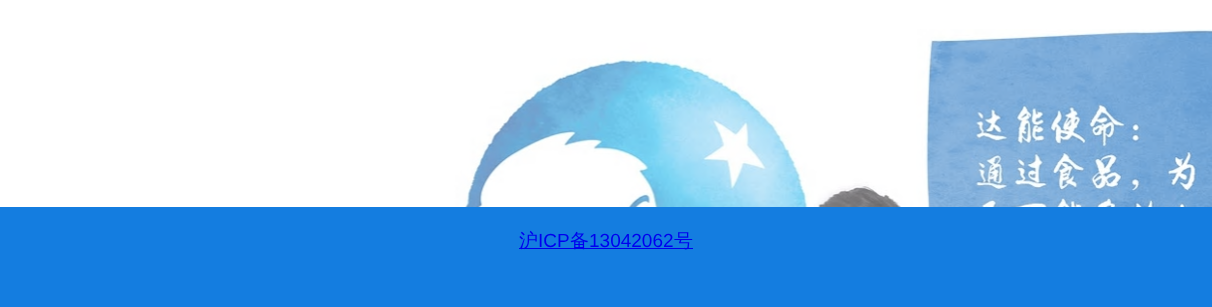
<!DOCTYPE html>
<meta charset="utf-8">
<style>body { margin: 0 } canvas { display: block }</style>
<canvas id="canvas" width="1212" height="307"></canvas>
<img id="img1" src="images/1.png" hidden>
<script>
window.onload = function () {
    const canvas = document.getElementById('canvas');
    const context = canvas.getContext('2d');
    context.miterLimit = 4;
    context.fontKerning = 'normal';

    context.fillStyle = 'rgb(255, 255, 255)';
    context.fillRect(0, 0, 1212, 307);
    context.drawImage(document.getElementById('img1'), 411, 29, 801, 178);
    context.fillStyle = 'rgb(20, 125, 224)';
    context.fillRect(0, 207, 1212, 100);
    context.fillStyle = 'rgb(0, 0, 238)';
    context.fillRect(519, 248, 174, 1);
    context.font = '500 19px WenQuanYi Zen Hei';
    context.fillText('沪', 519, 247);
    context.font = '19px Liberation Sans';
    context.fillText('ICP', 538, 247);
    context.font = '500 19px WenQuanYi Zen Hei';
    context.fillText('备', 570, 247);
    context.font = '19px Liberation Sans';
    context.fillText('13042062', 589, 247);
    context.font = '500 19px WenQuanYi Zen Hei';
    context.fillText('号', 674, 247);
};
</script>
